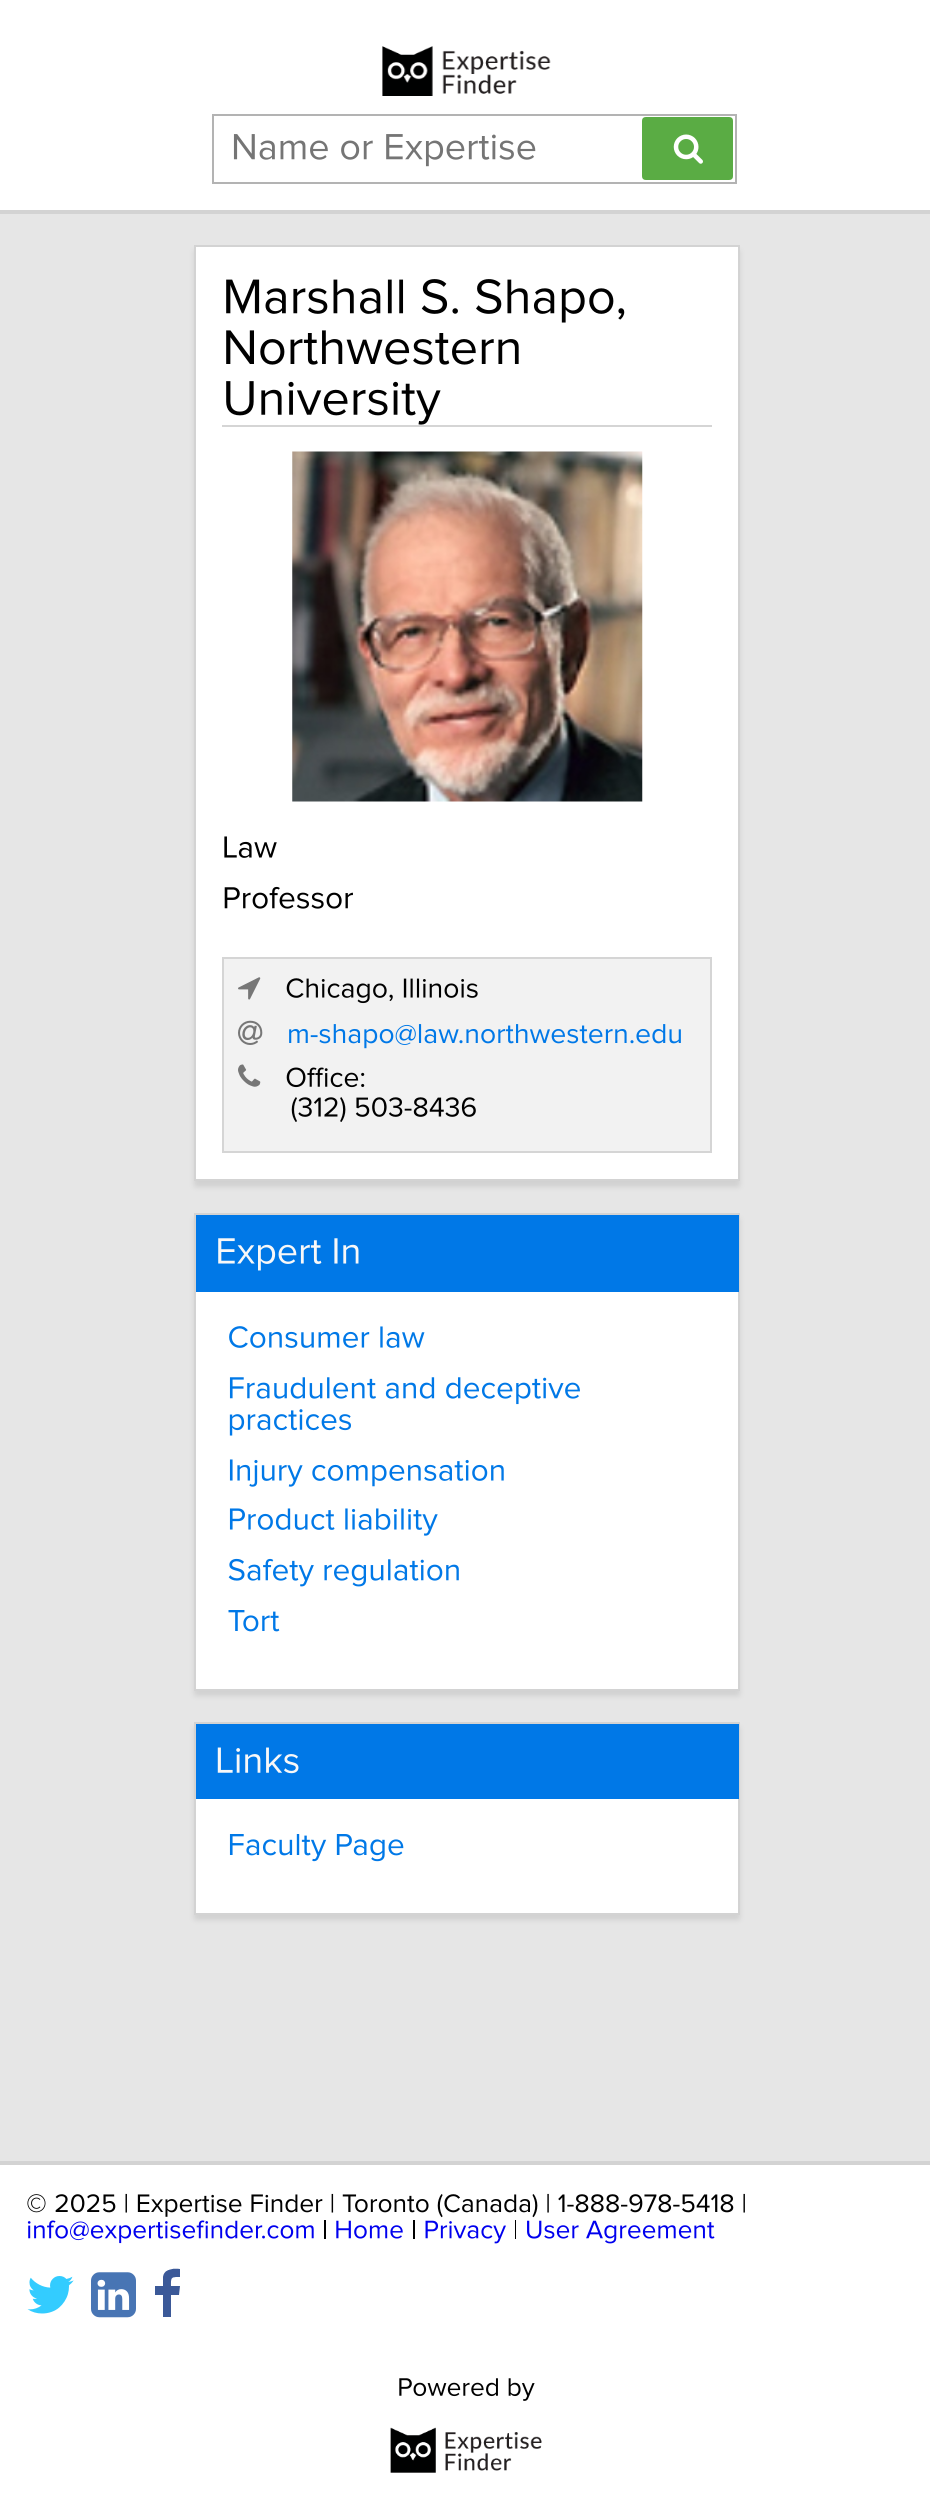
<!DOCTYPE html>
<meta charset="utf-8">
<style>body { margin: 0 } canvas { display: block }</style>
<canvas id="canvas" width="930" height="2514"></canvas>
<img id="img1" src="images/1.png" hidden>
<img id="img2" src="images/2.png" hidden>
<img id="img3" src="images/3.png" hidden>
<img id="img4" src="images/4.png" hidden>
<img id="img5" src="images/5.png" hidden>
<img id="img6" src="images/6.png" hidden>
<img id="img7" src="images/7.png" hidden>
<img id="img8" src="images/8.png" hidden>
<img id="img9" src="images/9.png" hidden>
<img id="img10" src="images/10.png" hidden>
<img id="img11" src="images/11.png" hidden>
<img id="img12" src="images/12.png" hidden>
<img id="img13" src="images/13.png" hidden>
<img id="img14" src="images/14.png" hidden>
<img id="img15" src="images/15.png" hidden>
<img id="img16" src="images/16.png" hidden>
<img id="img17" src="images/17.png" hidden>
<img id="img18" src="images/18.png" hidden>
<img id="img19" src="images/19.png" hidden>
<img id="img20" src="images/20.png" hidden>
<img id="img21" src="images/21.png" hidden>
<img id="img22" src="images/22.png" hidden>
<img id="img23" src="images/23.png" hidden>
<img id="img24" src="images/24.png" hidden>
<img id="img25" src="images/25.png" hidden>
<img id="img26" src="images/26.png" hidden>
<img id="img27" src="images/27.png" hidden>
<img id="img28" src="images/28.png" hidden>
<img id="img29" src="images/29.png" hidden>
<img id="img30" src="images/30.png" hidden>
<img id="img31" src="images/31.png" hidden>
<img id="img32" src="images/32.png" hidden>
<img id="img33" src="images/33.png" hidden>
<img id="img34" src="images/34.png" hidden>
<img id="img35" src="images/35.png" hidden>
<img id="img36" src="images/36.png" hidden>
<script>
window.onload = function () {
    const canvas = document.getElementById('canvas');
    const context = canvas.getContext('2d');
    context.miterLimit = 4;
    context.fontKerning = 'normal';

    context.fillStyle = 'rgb(230, 230, 230)';
    context.fillRect(0, 0, 930, 2514);
    context.fillStyle = 'rgb(255, 255, 255)';
    context.fillRect(0, 0, 930, 210);
    context.fillStyle = 'rgb(211, 211, 211)';
    context.fillRect(0, 210, 930, 4);
    context.drawImage(document.getElementById('img1'), 382, 46, 169, 50);
    context.strokeStyle = 'rgb(179, 179, 179)';
    context.lineWidth = 2;
    context.strokeRect(213, 115, 523, 68);
    context.drawImage(document.getElementById('img2'), 233, 134, 303, 33);
    context.fillStyle = 'rgb(90, 172, 68)';
    context.beginPath();
    context.roundRect(642, 117, 91, 63, 4);
    context.fill();
    context.drawImage(document.getElementById('img3'), 673, 134, 30, 30);
    context.fillStyle = 'rgba(0, 0, 0, 0.09)';
    context.filter = 'blur(2.5px)';
    context.beginPath();
    context.rect(194, 250, 546, 937);
    context.fill();
    context.filter = 'none';
    context.fillStyle = 'rgb(255, 255, 255)';
    context.beginPath();
    context.rect(195, 246, 544, 934);
    context.fill();
    context.strokeStyle = 'rgb(211, 211, 211)';
    context.stroke();
    context.fillStyle = 'rgb(213, 213, 213)';
    context.fillRect(222, 425, 490, 2);
    context.drawImage(document.getElementById('img4'), 226, 279, 399, 44);
    context.drawImage(document.getElementById('img5'), 226, 330, 293, 35);
    context.drawImage(document.getElementById('img6'), 226, 381, 215, 44);
    context.drawImage(document.getElementById('img7'), 292, 451, 351, 351);
    context.drawImage(document.getElementById('img8'), 224, 836, 53, 22);
    context.drawImage(document.getElementById('img9'), 224, 886, 129, 23);
    context.fillStyle = 'rgb(242, 242, 242)';
    context.beginPath();
    context.rect(223, 958, 488, 194);
    context.fill();
    context.strokeStyle = 'rgb(213, 213, 213)';
    context.stroke();
    context.drawImage(document.getElementById('img10'), 238, 977, 23, 23);
    context.drawImage(document.getElementById('img11'), 286, 978, 192, 26);
    context.drawImage(document.getElementById('img12'), 238, 1020, 25, 25);
    context.drawImage(document.getElementById('img13'), 289, 1024, 392, 25);
    context.drawImage(document.getElementById('img14'), 238, 1064, 23, 23);
    context.drawImage(document.getElementById('img15'), 286, 1067, 79, 21);
    context.drawImage(document.getElementById('img16'), 291, 1097, 185, 25);
    context.fillStyle = 'rgba(0, 0, 0, 0.09)';
    context.filter = 'blur(2.5px)';
    context.beginPath();
    context.rect(194, 1218, 546, 478);
    context.fill();
    context.filter = 'none';
    context.fillStyle = 'rgb(255, 255, 255)';
    context.fillRect(196, 1292, 542, 397);
    context.strokeStyle = 'rgb(211, 211, 211)';
    context.strokeRect(195, 1214, 544, 476);
    context.fillStyle = 'rgb(0, 120, 231)';
    context.fillRect(196, 1215, 543, 77);
    context.drawImage(document.getElementById('img17'), 218, 1238, 141, 33);
    context.drawImage(document.getElementById('img18'), 229, 1326, 196, 22);
    context.drawImage(document.getElementById('img19'), 229, 1377, 351, 28);
    context.drawImage(document.getElementById('img20'), 229, 1409, 122, 27);
    context.drawImage(document.getElementById('img21'), 229, 1459, 275, 28);
    context.drawImage(document.getElementById('img22'), 229, 1508, 209, 28);
    context.drawImage(document.getElementById('img23'), 228, 1558, 231, 29);
    context.drawImage(document.getElementById('img24'), 228, 1610, 52, 22);
    context.fillStyle = 'rgba(0, 0, 0, 0.09)';
    context.filter = 'blur(2.5px)';
    context.beginPath();
    context.rect(194, 1727, 546, 193);
    context.fill();
    context.filter = 'none';
    context.fillStyle = 'rgb(255, 255, 255)';
    context.fillRect(196, 1799, 542, 114);
    context.strokeRect(195, 1723, 544, 191);
    context.fillStyle = 'rgb(0, 120, 231)';
    context.fillRect(196, 1724, 543, 75);
    context.drawImage(document.getElementById('img25'), 217, 1747, 82, 27);
    context.drawImage(document.getElementById('img26'), 229, 1834, 175, 28);
    context.fillStyle = 'rgb(255, 255, 255)';
    context.fillRect(0, 2165, 930, 349);
    context.fillStyle = 'rgb(211, 211, 211)';
    context.fillRect(0, 2161, 930, 4);
    context.drawImage(document.getElementById('img27'), 27, 2194, 19, 19);
    context.drawImage(document.getElementById('img28'), 55, 2193, 690, 25);
    context.drawImage(document.getElementById('img29'), 27, 2220, 287, 24);
    context.fillStyle = 'rgb(0, 0, 0)';
    context.fillRect(324, 2220, 2, 19);
    context.drawImage(document.getElementById('img30'), 336, 2220, 67, 19);
    context.fillRect(413, 2220, 2, 19);
    context.drawImage(document.getElementById('img31'), 425, 2220, 81, 24);
    context.fillRect(515, 2220, 1, 19);
    context.drawImage(document.getElementById('img32'), 527, 2220, 188, 24);
    context.drawImage(document.getElementById('img33'), 27, 2276, 47, 38);
    context.drawImage(document.getElementById('img34'), 91, 2272, 45, 46);
    context.fillStyle = 'rgb(59, 89, 152)';
    context.beginPath();
    context.moveTo(180, 2269);
    context.lineTo(180, 2277);
    context.bezierCurveTo(171, 2277, 171, 2277, 171, 2286);
    context.lineTo(180, 2286);
    context.lineTo(179, 2295);
    context.lineTo(171, 2295);
    context.lineTo(171, 2317);
    context.lineTo(163, 2317);
    context.lineTo(163, 2295);
    context.lineTo(155, 2295);
    context.lineTo(155, 2286);
    context.lineTo(163, 2286);
    context.lineTo(163, 2277);
    context.bezierCurveTo(164, 2269, 173, 2268, 180, 2269);
    context.closePath();
    context.fill();
    context.drawImage(document.getElementById('img35'), 399, 2378, 136, 23);
    context.drawImage(document.getElementById('img36'), 390, 2427, 152, 46);
};
</script>
